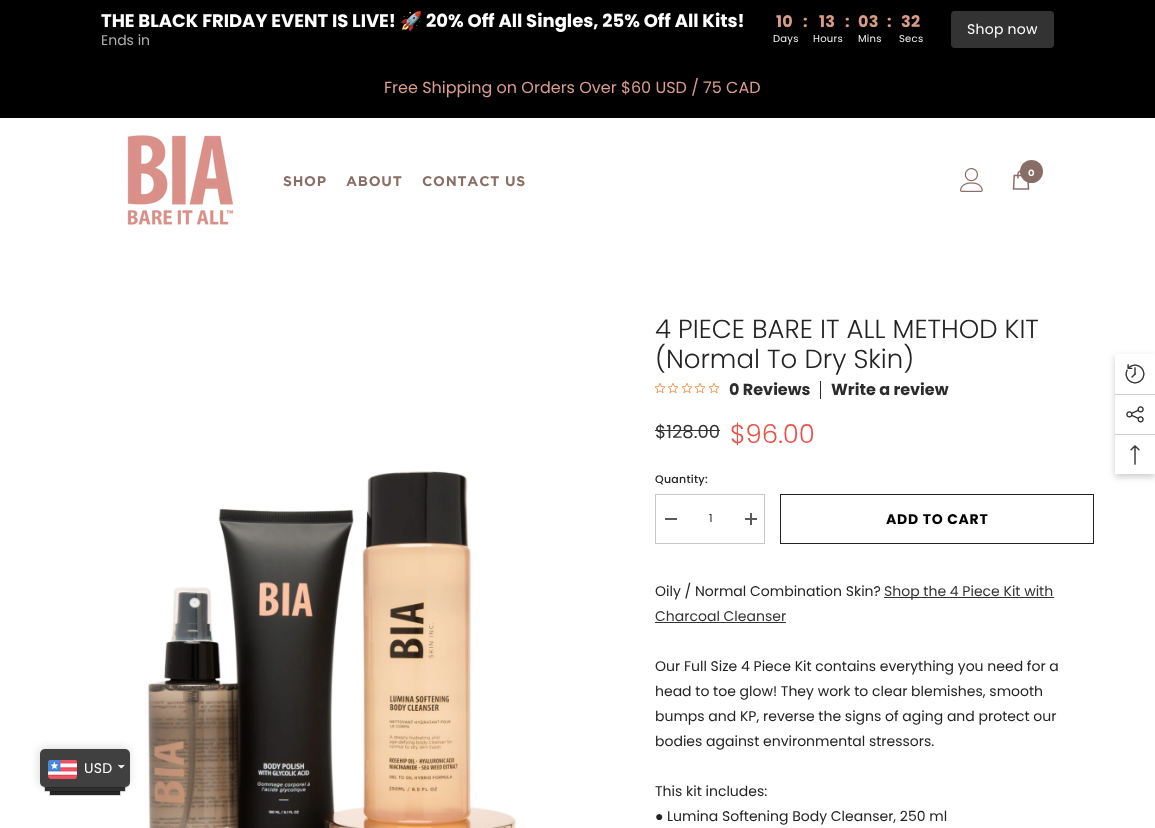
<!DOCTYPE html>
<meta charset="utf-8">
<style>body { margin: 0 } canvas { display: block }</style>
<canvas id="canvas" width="1155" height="828"></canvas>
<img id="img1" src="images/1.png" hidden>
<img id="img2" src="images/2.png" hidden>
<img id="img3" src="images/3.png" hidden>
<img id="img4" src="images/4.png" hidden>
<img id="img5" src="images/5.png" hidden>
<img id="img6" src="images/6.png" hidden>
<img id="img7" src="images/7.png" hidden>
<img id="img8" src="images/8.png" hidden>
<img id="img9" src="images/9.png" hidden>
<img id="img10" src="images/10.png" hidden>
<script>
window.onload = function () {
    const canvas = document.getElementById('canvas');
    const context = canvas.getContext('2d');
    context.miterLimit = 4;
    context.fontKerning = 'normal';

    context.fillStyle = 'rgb(255, 255, 255)';
    context.fillRect(0, 0, 1155, 828);
    context.fillStyle = 'rgb(0, 0, 0)';
    context.fillRect(0, 0, 1155, 118);
    context.fillStyle = 'rgb(51, 51, 51)';
    context.beginPath();
    context.roundRect(951, 11, 103, 37, 4);
    context.fill();
    context.drawImage(document.getElementById('img1'), 127, 135, 107, 90);
    context.drawImage(document.getElementById('img2'), 960, 168, 23, 24);
    context.drawImage(document.getElementById('img3'), 1012, 170, 18, 20);
    context.fillStyle = 'rgb(137, 110, 103)';
    context.beginPath();
    context.arc(1031.5, 171.5, 11.5, 0, 2 * Math.PI);
    context.fill();
    context.drawImage(document.getElementById('img4'), 147, 471, 369, 357);
    context.drawImage(document.getElementById('img5'), 655, 383, 10, 10);
    context.drawImage(document.getElementById('img5'), 668, 383, 10, 10);
    context.drawImage(document.getElementById('img5'), 682, 383, 10, 10);
    context.drawImage(document.getElementById('img5'), 695, 383, 10, 10);
    context.drawImage(document.getElementById('img5'), 709, 383, 10, 10);
    context.fillStyle = 'rgb(44, 44, 44)';
    context.fillRect(820, 381, 1, 18);
    context.fillStyle = 'rgb(51, 51, 51)';
    context.fillRect(655, 430, 65, 1);
    context.strokeStyle = 'rgb(199, 199, 199)';
    context.strokeRect(655.5, 494.5, 109, 49);
    context.fillStyle = 'rgb(90, 90, 90)';
    context.fillRect(665, 518, 12, 2);
    context.fillRect(745, 518, 12, 2);
    context.fillRect(750, 513, 2, 12);
    context.strokeStyle = 'rgb(35, 35, 35)';
    context.strokeRect(780.5, 494.5, 313, 49);
    context.fillStyle = 'rgb(51, 51, 51)';
    context.fillRect(884, 597, 170, 1);
    context.fillRect(655, 622, 131, 1);
    context.save();
    context.beginPath();
    context.moveTo(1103, 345);
    context.lineTo(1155, 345);
    context.lineTo(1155, 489);
    context.lineTo(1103, 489);
    context.closePath();
    context.moveTo(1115, 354);
    context.lineTo(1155, 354);
    context.lineTo(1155, 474);
    context.lineTo(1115, 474);
    context.closePath();
    context.clip('evenodd');
    context.fillStyle = 'rgba(0, 0, 0, 0.2)';
    context.filter = 'blur(3.5px)';
    context.beginPath();
    context.rect(1115, 357, 40, 120);
    context.fill();
    context.filter = 'none';
    context.restore();
    context.drawImage(document.getElementById('img6'), 1125, 364, 20, 20);
    context.fillStyle = 'rgb(204, 204, 204)';
    context.fillRect(1115, 394, 40, 1);
    context.drawImage(document.getElementById('img7'), 1126, 406, 18, 17);
    context.fillRect(1115, 434, 40, 1);
    context.drawImage(document.getElementById('img8'), 1130, 445, 10, 20);
    context.fillStyle = 'rgba(0, 0, 0, 0.15)';
    context.filter = 'blur(0.5px)';
    context.beginPath();
    context.rect(49, 776, 72, 20);
    context.fill();
    context.filter = 'none';
    context.fillStyle = 'rgb(38, 38, 38)';
    context.fillRect(50, 791, 70, 4);
    context.fillStyle = 'rgba(0, 0, 0, 0.15)';
    context.filter = 'blur(0.5px)';
    context.beginPath();
    context.roundRect(44, 762, 82, 30, 1);
    context.fill();
    context.filter = 'none';
    context.fillStyle = 'rgb(49, 49, 49)';
    context.fillRect(45, 787, 80, 4);
    context.fillStyle = 'rgba(0, 0, 0, 0.15)';
    context.filter = 'blur(0.5px)';
    context.beginPath();
    context.roundRect(40, 750, 90, 38, 5);
    context.fill();
    context.filter = 'none';
    context.filter = 'blur(5px)';
    context.beginPath();
    context.roundRect(39, 748, 90, 38, 5);
    context.fill();
    context.filter = 'none';
    context.fillStyle = 'rgb(64, 64, 64)';
    context.beginPath();
    context.roundRect(40, 749, 90, 38, 5);
    context.fill();
    context.drawImage(document.getElementById('img9'), 48, 760, 29, 19);
    context.drawImage(document.getElementById('img10'), 118, 764, 7, 5);
    context.font = 'bold 18px Poppins';
    context.fillStyle = 'rgb(255, 255, 255)';
    context.fillText('THE BLACK FRIDAY EVENT IS LIVE!', 101, 27);
    context.font = 'bold 18px Noto Color Emoji';
    context.fillText('🚀', 400, 27);
    context.font = 'bold 18px Poppins';
    context.fillText('20% Off All Singles, 25% Off All Kits!', 426, 27);
    context.font = '14px Poppins';
    context.fillStyle = 'rgb(175, 175, 175)';
    context.fillText('Ends in', 101, 45);
    context.letterSpacing = '0.25px';
    context.font = 'bold 16px Poppins';
    context.fillStyle = 'rgb(217, 156, 136)';
    context.fillText('10', 776, 27);
    context.fillText(':', 803, 27);
    context.fillText('13', 819, 27);
    context.fillText(':', 845, 27);
    context.fillText('03', 858, 27);
    context.fillText(':', 887, 27);
    context.fillText('32', 901, 27);
    context.font = '10px Poppins';
    context.fillStyle = 'rgb(240, 240, 240)';
    context.fillText('Days', 773, 42);
    context.fillText('Hours', 813, 42);
    context.fillText('Mins', 858, 42);
    context.fillText('Secs', 899, 42);
    context.font = '14px Poppins';
    context.fillStyle = 'rgb(255, 255, 255)';
    context.fillText('Shop now', 967, 34);
    context.letterSpacing = '0px';
    context.font = '16px Poppins';
    context.fillStyle = 'rgb(219, 157, 142)';
    context.fillText('Free Shipping on Orders Over $60 USD / 75 CAD', 384, 93);
    context.letterSpacing = '0.25px';
    context.font = 'bold 9px Gotham';
    context.fillStyle = 'rgb(255, 255, 255)';
    context.fillText('0', 1028, 176);
    context.letterSpacing = '0.75px';
    context.font = 'bold 14px Gotham';
    context.fillStyle = 'rgb(137, 110, 103)';
    context.fillText('SHOP', 283, 186);
    context.fillText('ABOUT', 346, 186);
    context.fillText('CONTACT US', 422, 186);
    context.letterSpacing = '0px';
    context.font = '300 26px Poppins';
    context.fillStyle = 'rgb(35, 35, 35)';
    context.fillText('4 PIECE BARE IT ALL METHOD KIT', 655, 338);
    context.fillText('(Normal To Dry Skin)', 655, 368);
    context.font = 'bold 16px Poppins';
    context.fillStyle = 'rgb(44, 44, 44)';
    context.fillText('0 Reviews', 729, 395);
    context.fillText('Write a review', 831, 395);
    context.font = '18px Poppins';
    context.fillStyle = 'rgb(51, 51, 51)';
    context.fillText('$128.00', 655, 438);
    context.font = '300 26px Poppins';
    context.fillStyle = 'rgb(233, 81, 68)';
    context.fillText('$96.00', 730, 443);
    context.letterSpacing = '0.25px';
    context.font = '500 11px Poppins';
    context.fillStyle = 'rgb(35, 35, 35)';
    context.fillText('Quantity:', 655, 483);
    context.font = '11px Poppins';
    context.fillText('1', 709, 522);
    context.letterSpacing = '0.75px';
    context.font = 'bold 14px Poppins';
    context.fillStyle = 'rgb(0, 0, 0)';
    context.fillText('ADD TO CART', 886, 524);
    context.letterSpacing = '0px';
    context.font = '14px Poppins';
    context.fillStyle = 'rgb(35, 35, 35)';
    context.fillText('Oily / Normal Combination Skin?', 655, 596);
    context.fillStyle = 'rgb(51, 51, 51)';
    context.fillText('Shop the 4 Piece Kit with', 884, 596);
    context.fillText('Charcoal Cleanser', 655, 621);
    context.fillStyle = 'rgb(35, 35, 35)';
    context.fillText('Our Full Size 4 Piece Kit contains everything you need for a', 655, 671);
    context.fillText('head to toe glow! They work to clear blemishes, smooth', 655, 696);
    context.fillText('bumps and KP, reverse the signs of aging and protect our', 655, 721);
    context.fillText('bodies against environmental stressors.', 655, 746);
    context.fillText('This kit includes:', 655, 796);
    context.font = '14px Liberation Serif';
    context.fillText('●', 655, 821);
    context.font = '14px Poppins';
    context.fillText('Lumina Softening Body Cleanser, 250 ml', 667, 821);
    context.letterSpacing = '0.25px';
    context.fillStyle = 'rgb(255, 255, 255)';
    context.fillText('USD', 84, 773);
};
</script>
